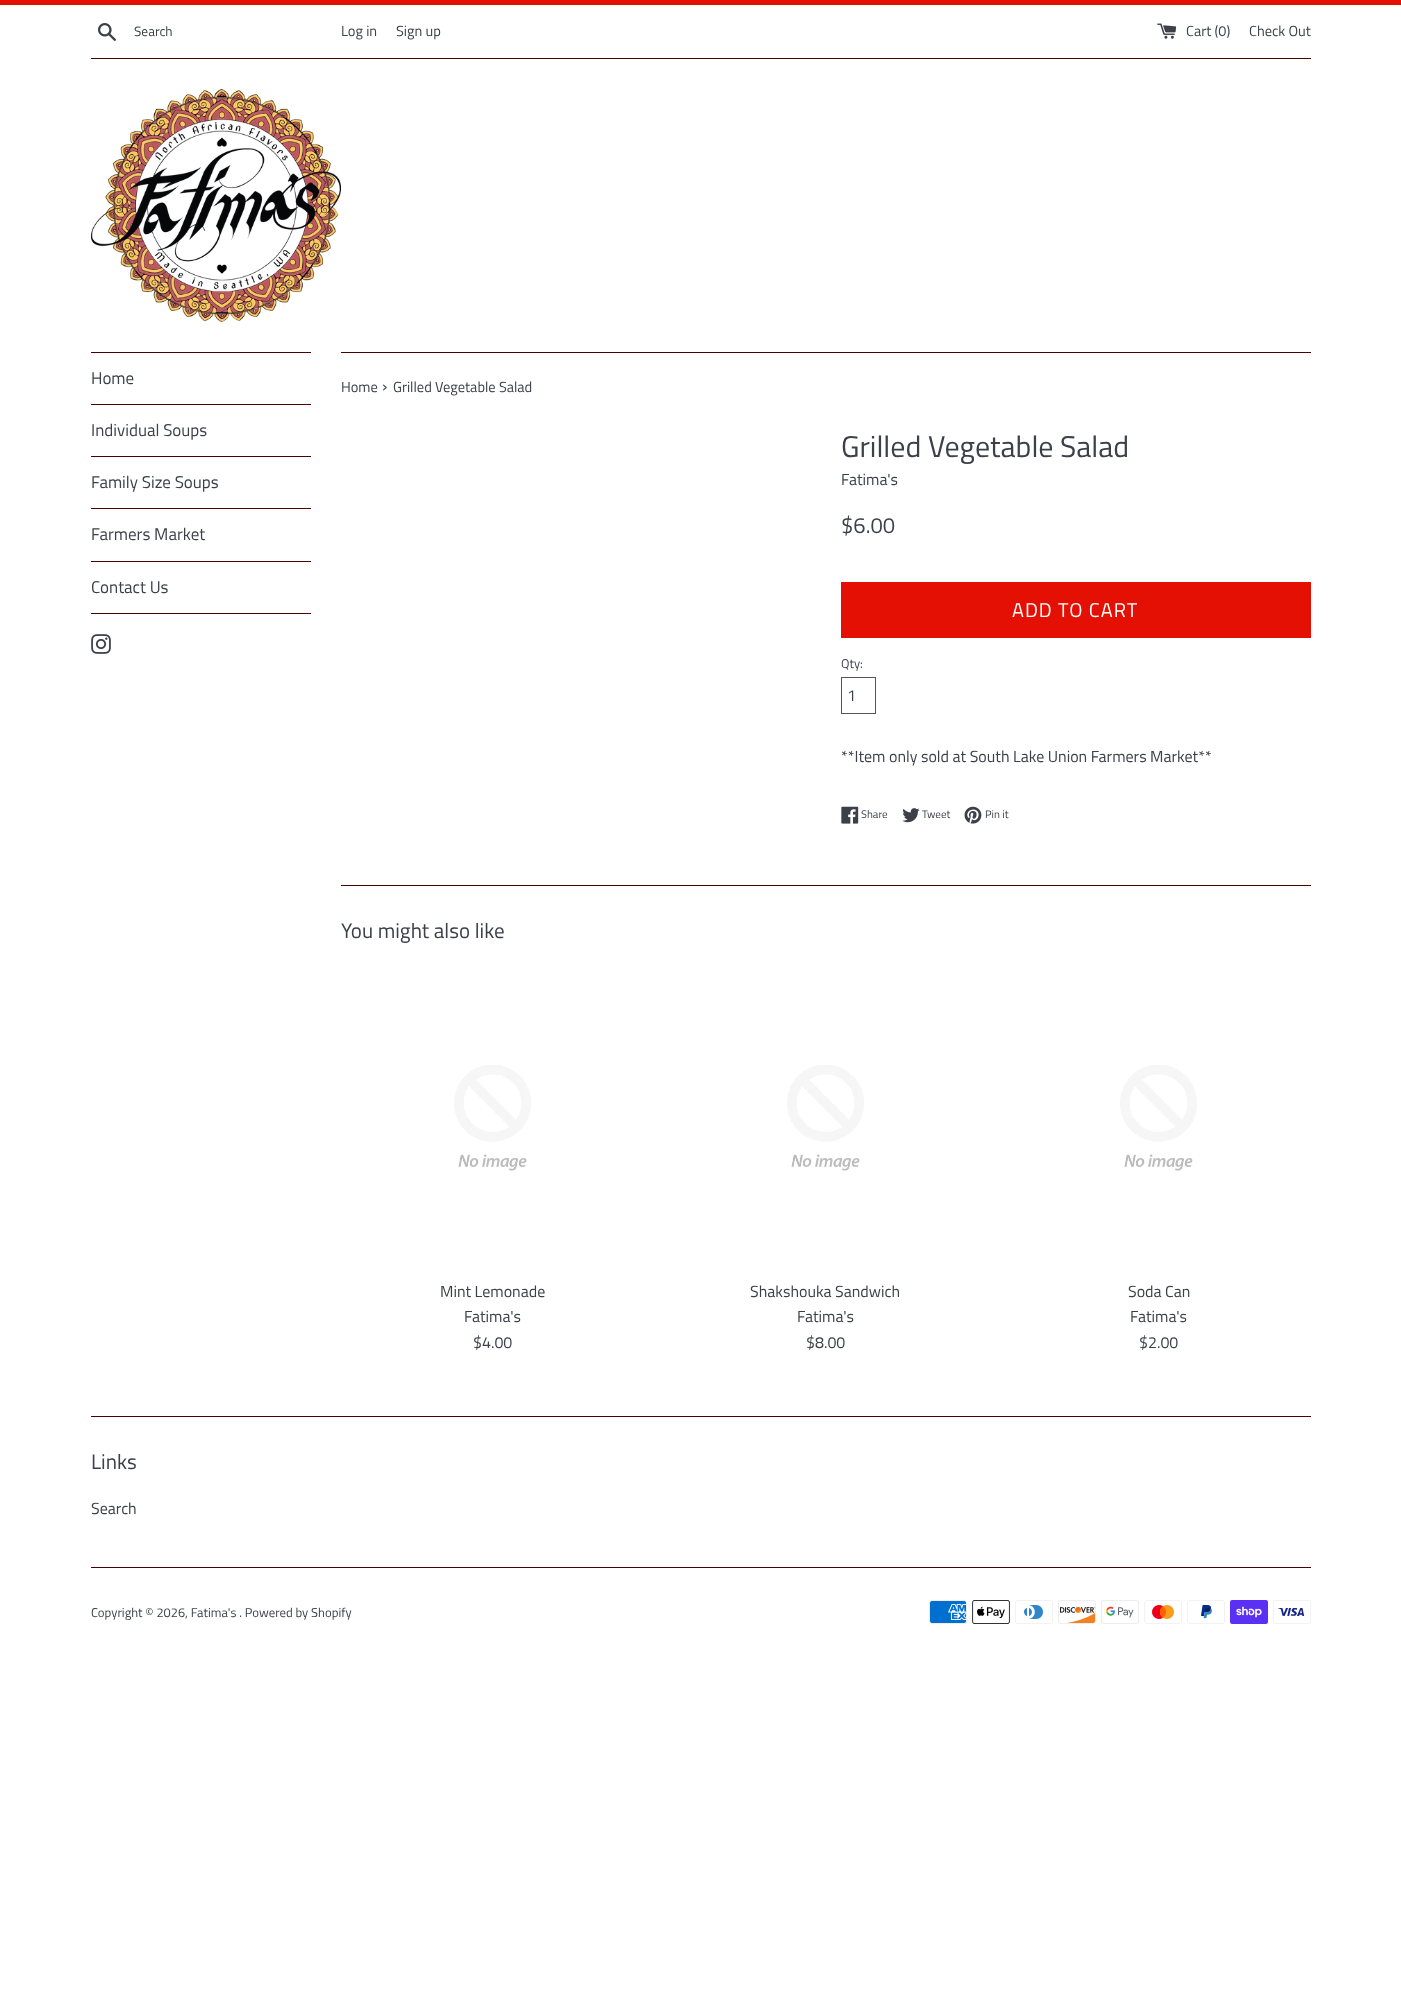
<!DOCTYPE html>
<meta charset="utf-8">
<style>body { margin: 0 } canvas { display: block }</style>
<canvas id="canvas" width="1401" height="1994"></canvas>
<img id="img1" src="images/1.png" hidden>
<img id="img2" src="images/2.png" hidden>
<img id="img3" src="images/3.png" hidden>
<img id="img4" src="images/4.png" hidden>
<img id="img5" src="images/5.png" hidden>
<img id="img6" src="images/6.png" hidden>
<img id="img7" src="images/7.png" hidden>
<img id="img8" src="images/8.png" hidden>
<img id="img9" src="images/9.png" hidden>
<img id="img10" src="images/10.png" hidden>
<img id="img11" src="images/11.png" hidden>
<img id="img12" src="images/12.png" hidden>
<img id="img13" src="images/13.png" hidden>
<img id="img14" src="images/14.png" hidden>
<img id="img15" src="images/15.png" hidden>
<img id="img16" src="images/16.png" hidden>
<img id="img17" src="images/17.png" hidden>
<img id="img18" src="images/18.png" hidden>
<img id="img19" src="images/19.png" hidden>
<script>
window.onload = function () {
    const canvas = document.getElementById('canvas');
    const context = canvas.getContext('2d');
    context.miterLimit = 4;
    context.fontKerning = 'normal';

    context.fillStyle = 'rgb(255, 255, 255)';
    context.fillRect(0, 0, 1401, 1994);
    context.fillStyle = 'rgb(227, 16, 3)';
    context.fillRect(0, 0, 1401, 5);
    context.drawImage(document.getElementById('img1'), 98, 23, 18, 18);
    context.drawImage(document.getElementById('img2'), 1157, 23, 20, 16);
    context.fillStyle = 'rgb(73, 4, 0)';
    context.fillRect(91, 58, 1220, 1);
    context.drawImage(document.getElementById('img3'), 91, 89, 250, 233);
    context.fillRect(91, 352, 220, 1);
    context.fillRect(91, 404, 220, 1);
    context.fillRect(91, 456, 220, 1);
    context.fillRect(91, 508, 220, 1);
    context.fillRect(91, 561, 220, 1);
    context.fillRect(91, 613, 220, 1);
    context.drawImage(document.getElementById('img4'), 91, 634, 20, 20);
    context.fillRect(341, 352, 970, 1);
    context.fillStyle = 'rgb(227, 16, 3)';
    context.fillRect(841, 582, 470, 56);
    context.strokeStyle = 'rgb(85, 85, 85)';
    context.strokeRect(841.5, 677.5, 34, 36);
    context.drawImage(document.getElementById('img5'), 841, 806, 18, 18);
    context.drawImage(document.getElementById('img6'), 902, 808, 18, 15);
    context.drawImage(document.getElementById('img7'), 964, 806, 18, 18);
    context.fillStyle = 'rgb(73, 4, 0)';
    context.fillRect(341, 885, 970, 1);
    context.drawImage(document.getElementById('img8'), 454, 1065, 77, 106);
    context.drawImage(document.getElementById('img9'), 787, 1065, 77, 106);
    context.drawImage(document.getElementById('img10'), 1120, 1065, 77, 106);
    context.fillRect(91, 1416, 1220, 1);
    context.fillRect(91, 1567, 1220, 1);
    context.drawImage(document.getElementById('img11'), 929, 1600, 38, 24);
    context.drawImage(document.getElementById('img12'), 972, 1600, 38, 24);
    context.drawImage(document.getElementById('img13'), 1015, 1600, 38, 24);
    context.drawImage(document.getElementById('img14'), 1058, 1600, 38, 24);
    context.drawImage(document.getElementById('img15'), 1101, 1600, 38, 24);
    context.drawImage(document.getElementById('img16'), 1144, 1600, 38, 24);
    context.drawImage(document.getElementById('img17'), 1187, 1600, 38, 24);
    context.drawImage(document.getElementById('img18'), 1230, 1600, 38, 24);
    context.drawImage(document.getElementById('img19'), 1273, 1600, 38, 24);
    context.font = '13.5px Titillium Web';
    context.fillStyle = 'rgb(60, 64, 73)';
    context.fillText('Search', 134, 36);
    context.font = '14.5px Titillium Web';
    context.fillText('Log in', 341, 36);
    context.fillText('Sign up', 396, 36);
    context.fillText('Cart (0)', 1186, 36);
    context.fillText('Check Out', 1249, 36);
    context.font = '17px Titillium Web';
    context.fillText('Home', 91, 384);
    context.fillText('Individual Soups', 91, 436);
    context.fillText('Family Size Soups', 91, 488);
    context.fillText('Farmers Market', 91, 540);
    context.fillText('Contact Us', 91, 593);
    context.font = '14.5px Titillium Web';
    context.fillText('Home', 341, 392);
    context.font = '18px Titillium Web';
    context.fillText('›', 382, 392);
    context.font = '14.5px Titillium Web';
    context.fillText('Grilled Vegetable Salad', 393, 392);
    context.font = '30px Titillium Web';
    context.fillText('Grilled Vegetable Salad', 841, 457);
    context.font = '16px Titillium Web';
    context.fillText('Fatima\'s', 841, 485);
    context.font = '22px Titillium Web';
    context.fillText('$6.00', 841, 533);
    context.letterSpacing = '1px';
    context.font = '20px Titillium Web';
    context.fillStyle = 'rgb(255, 255, 255)';
    context.fillText('ADD TO CART', 1012, 617);
    context.letterSpacing = '0px';
    context.font = '12.8px Titillium Web';
    context.fillStyle = 'rgb(60, 64, 73)';
    context.fillText('Qty:', 841, 668);
    context.font = '16px Titillium Web';
    context.fillText('1', 847, 701);
    context.fillText('**Item only sold at South Lake Union Farmers Market**', 841, 762);
    context.font = '11px Titillium Web';
    context.fillText('Share', 861, 818);
    context.fillText('Tweet', 922, 818);
    context.fillText('Pin it', 985, 818);
    context.font = '21px Titillium Web';
    context.fillText('You might also like', 341, 938);
    context.font = '16px Titillium Web';
    context.fillText('Mint Lemonade', 440, 1297);
    context.fillText('Fatima\'s', 464, 1322);
    context.fillText('$4.00', 473, 1348);
    context.fillText('Shakshouka Sandwich', 750, 1297);
    context.fillText('Fatima\'s', 797, 1322);
    context.fillText('$8.00', 806, 1348);
    context.fillText('Soda Can', 1128, 1297);
    context.fillText('Fatima\'s', 1130, 1322);
    context.fillText('$2.00', 1139, 1348);
    context.font = '21px Titillium Web';
    context.fillText('Links', 91, 1469);
    context.font = '16px Titillium Web';
    context.fillText('Search', 91, 1514);
    context.font = '12.8px Titillium Web';
    context.fillText('Copyright © 2026, Fatima\'s . Powered by Shopify', 91, 1617);
};
</script>
